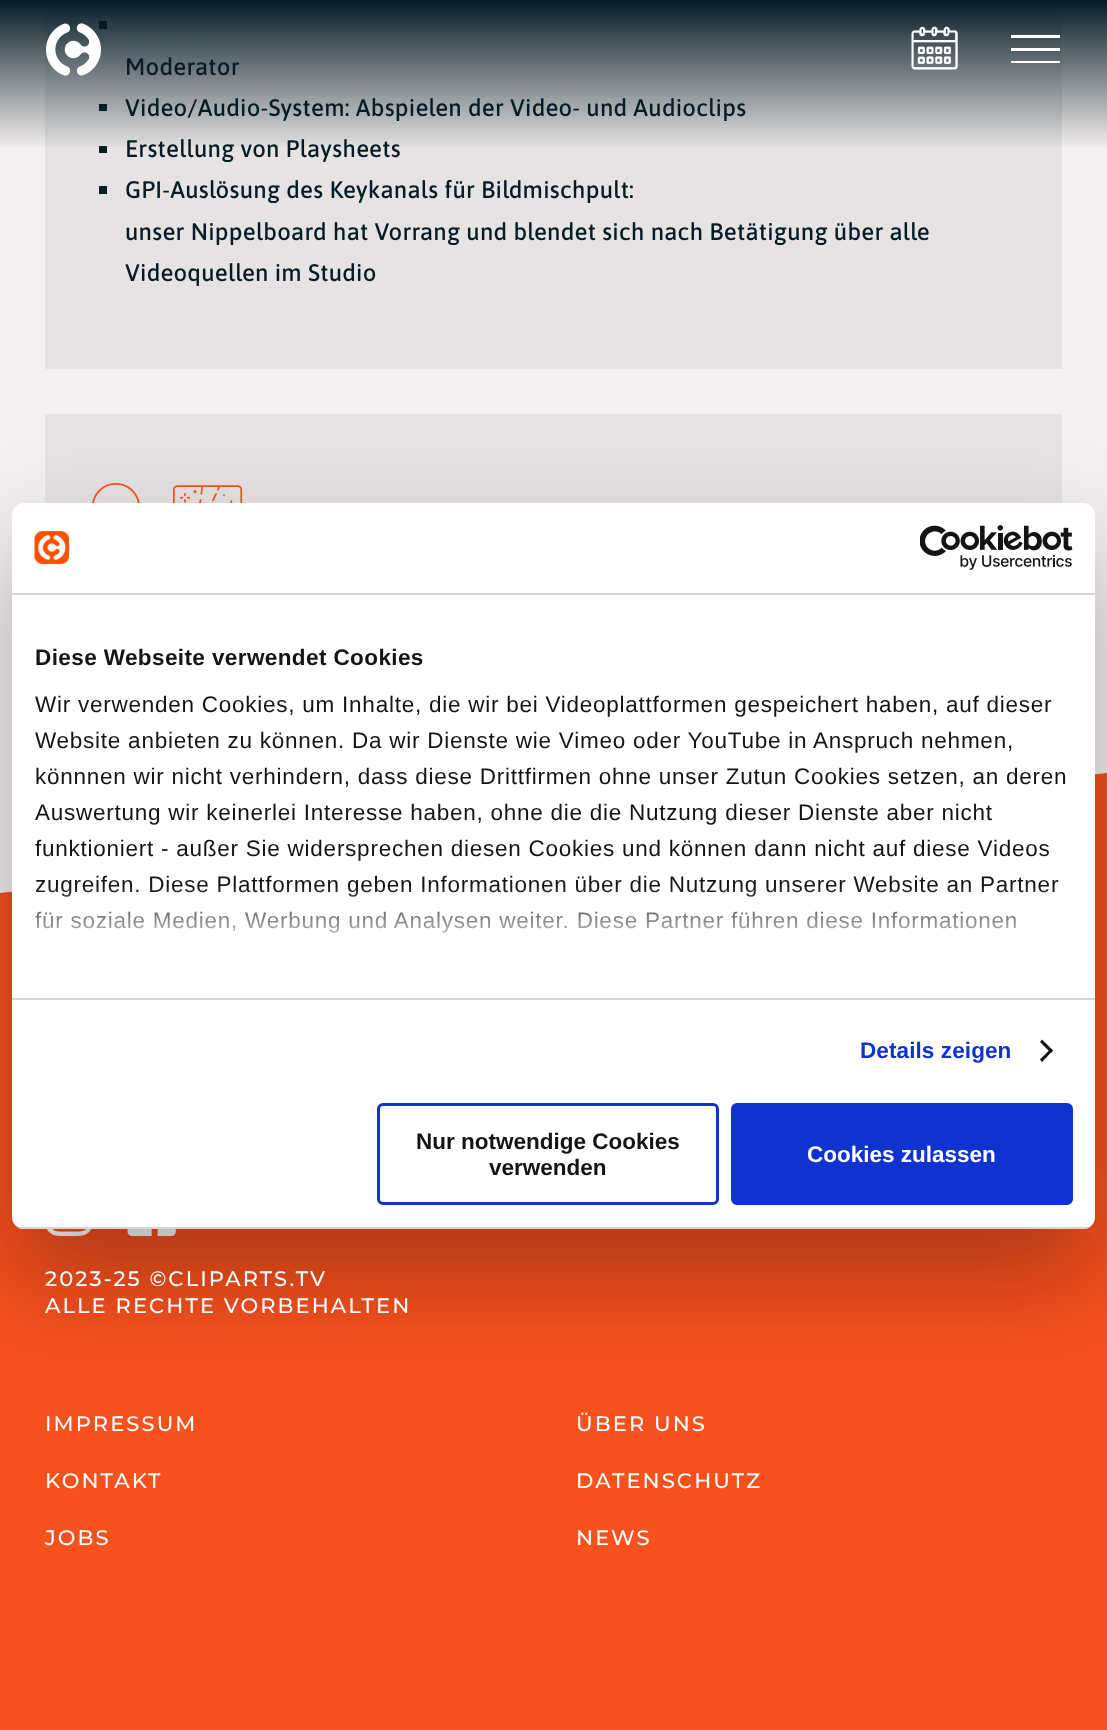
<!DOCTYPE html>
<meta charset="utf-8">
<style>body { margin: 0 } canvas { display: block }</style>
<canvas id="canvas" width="1107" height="1730"></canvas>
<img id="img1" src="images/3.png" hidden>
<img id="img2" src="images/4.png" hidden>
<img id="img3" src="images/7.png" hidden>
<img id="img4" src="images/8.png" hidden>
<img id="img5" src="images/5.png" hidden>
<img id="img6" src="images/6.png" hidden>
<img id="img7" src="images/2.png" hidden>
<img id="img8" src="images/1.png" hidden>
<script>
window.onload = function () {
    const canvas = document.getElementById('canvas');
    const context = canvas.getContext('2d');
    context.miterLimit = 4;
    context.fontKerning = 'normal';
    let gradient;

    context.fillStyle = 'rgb(245, 240, 239)';
    context.fillRect(0, 0, 1107, 1730);
    context.fillStyle = 'rgb(230, 227, 226)';
    context.fillRect(45, 1, 1017, 368);
    context.fillStyle = 'rgb(5, 28, 39)';
    context.fillRect(99, 21, 8, 8);
    context.fillRect(99, 104, 8, 7);
    context.fillRect(99, 146, 8, 7);
    context.fillRect(99, 186, 8, 8);
    context.fillStyle = 'rgb(230, 227, 226)';
    context.fillRect(45, 414, 1017, 89);
    context.drawImage(document.getElementById('img1'), 92, 483, 48, 20);
    context.drawImage(document.getElementById('img2'), 172, 485, 71, 18);
    context.fillStyle = 'rgb(247, 81, 30)';
    context.beginPath();
    context.moveTo(0, 893);
    context.lineTo(0, 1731);
    context.lineTo(1107, 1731);
    context.lineTo(1107, 773);
    context.closePath();
    context.fill();
    context.drawImage(document.getElementById('img3'), 47, 1229, 45, 7);
    context.drawImage(document.getElementById('img4'), 127, 1229, 49, 7);
    context.fillStyle = 'rgba(0, 0, 0, 0.3)';
    context.filter = 'blur(51px)';
    context.beginPath();
    context.roundRect(12, 551, 1083, 726, 12);
    context.fill();
    context.filter = 'none';
    context.fillStyle = 'rgb(255, 255, 255)';
    context.beginPath();
    context.roundRect(12, 503, 1083, 726, 12);
    context.fill();
    context.fillStyle = 'rgb(214, 214, 214)';
    context.fillRect(12, 593, 1083, 2);
    context.drawImage(document.getElementById('img5'), 34, 531, 35, 34);
    context.drawImage(document.getElementById('img6'), 920, 525, 153, 45);
    context.fillRect(12, 998, 1083, 2);
    context.fillStyle = 'rgb(20, 20, 20)';
    context.beginPath();
    context.moveTo(1042, 1039.5);
    context.lineTo(1053, 1050.5);
    context.lineTo(1051, 1053);
    context.lineTo(1040, 1042);
    context.closePath();
    context.fill();
    context.beginPath();
    context.moveTo(1051, 1048.5);
    context.lineTo(1053, 1050.5);
    context.lineTo(1042, 1062);
    context.lineTo(1040, 1059.5);
    context.closePath();
    context.fill();
    context.save();
    context.beginPath();
    context.roundRect(12, 503, 1083, 726, 12);
    context.clip();
    context.fillStyle = 'rgb(214, 214, 214)';
    context.fillRect(12, 1227, 1083, 2);
    context.restore();
    context.beginPath();
    context.roundRect(378.5, 1104.5, 339, 99, 4.5);
    context.strokeStyle = 'rgb(16, 50, 207)';
    context.lineWidth = 3;
    context.stroke();
    context.fillStyle = 'rgb(16, 50, 207)';
    context.beginPath();
    context.roundRect(732.5, 1104.5, 339, 99, 4.5);
    context.fill();
    context.stroke();
    context.letterSpacing = '0.25px';
    context.font = '500 24px Asap';
    context.fillStyle = 'rgb(5, 28, 39)';
    context.fillText('Moderator', 125, 75);
    context.fillText('Video/Audio-System: Abspielen der Video- und Audioclips', 125, 116);
    context.fillText('Erstellung von Playsheets', 125, 157);
    gradient = context.createLinearGradient(554, 0, 554, 150);
    gradient.addColorStop(0, 'rgb(5, 28, 39)');
    gradient.addColorStop(1, 'rgba(5, 28, 39, 0)');
    context.fillStyle = gradient;
    context.fillRect(0, 0, 1107, 147);
    context.fillStyle = 'rgb(255, 255, 255)';
    context.beginPath();
    context.moveTo(1011, 35);
    context.lineTo(1060, 35);
    context.lineTo(1060, 38);
    context.lineTo(1011, 38);
    context.closePath();
    context.moveTo(1011, 48);
    context.lineTo(1060, 48);
    context.lineTo(1060, 51);
    context.lineTo(1011, 51);
    context.closePath();
    context.moveTo(1011, 61);
    context.lineTo(1060, 61);
    context.lineTo(1060, 63);
    context.lineTo(1011, 63);
    context.closePath();
    context.fill();
    context.drawImage(document.getElementById('img7'), 911, 26, 47, 44);
    context.drawImage(document.getElementById('img8'), 45, 23, 56, 53);
    context.fillStyle = 'rgb(5, 28, 39)';
    context.fillText('GPI-Auslösung des Keykanals für Bildmischpult:', 125, 198);
    context.fillText('unser Nippelboard hat Vorrang und blendet sich nach Betätigung über alle', 125, 240);
    context.fillText('Videoquellen im Studio', 125, 281);
    context.letterSpacing = '0.4px';
    context.font = 'bold 22.5px Liberation Sans';
    context.fillStyle = 'rgb(20, 20, 20)';
    context.fillText('Diese Webseite verwendet Cookies', 35, 665);
    context.letterSpacing = '0.75px';
    context.font = '22.5px Liberation Sans';
    context.fillText('Wir verwenden Cookies, um Inhalte, die wir bei Videoplattformen gespeichert haben, auf dieser', 35, 712);
    context.fillText('Website anbieten zu können. Da wir Dienste wie Vimeo oder YouTube in Anspruch nehmen,', 35, 748);
    context.fillText('könnnen wir nicht verhindern, dass diese Drittfirmen ohne unser Zutun Cookies setzen, an deren', 35, 784);
    context.fillText('Auswertung wir keinerlei Interesse haben, ohne die die Nutzung dieser Dienste aber nicht', 35, 820);
    context.fillText('funktioniert - außer Sie widersprechen diesen Cookies und können dann nicht auf diese Videos', 35, 856);
    context.fillText('zugreifen. Diese Plattformen geben Informationen über die Nutzung unserer Website an Partner', 35, 892);
    context.fillText('für soziale Medien, Werbung und Analysen weiter. Diese Partner führen diese Informationen', 35, 928);
    gradient = context.createLinearGradient(544, 998, 544, 885);
    gradient.addColorStop(0, 'rgb(255, 255, 255)');
    gradient.addColorStop(0.5, 'rgba(255, 255, 255, 0.8)');
    gradient.addColorStop(1, 'rgba(255, 255, 255, 0)');
    context.fillStyle = gradient;
    context.fillRect(34, 887, 1020, 46);
    context.letterSpacing = '0.1px';
    context.font = 'bold 22.5px Liberation Sans';
    context.fillStyle = 'rgb(16, 50, 207)';
    context.fillText('Details zeigen', 860, 1058);
    context.letterSpacing = '0px';
    context.fillStyle = 'rgb(20, 20, 20)';
    context.fillText('Nur notwendige Cookies', 416, 1149);
    context.fillText('verwenden', 489, 1175);
    context.fillStyle = 'rgb(255, 255, 255)';
    context.fillText('Cookies zulassen', 807, 1162);
    context.letterSpacing = '2.1px';
    context.font = '100 21px Montserrat';
    context.fillText('2023-25 ©CLIPARTS.TV', 45, 1286);
    context.fillText('ALLE RECHTE VORBEHALTEN', 45, 1313);
    context.fillText('IMPRESSUM', 45, 1431);
    context.fillText('ÜBER UNS', 576, 1431);
    context.fillText('KONTAKT', 45, 1488);
    context.fillText('DATENSCHUTZ', 576, 1488);
    context.fillText('JOBS', 45, 1545);
    context.fillText('NEWS', 576, 1545);
};
</script>
